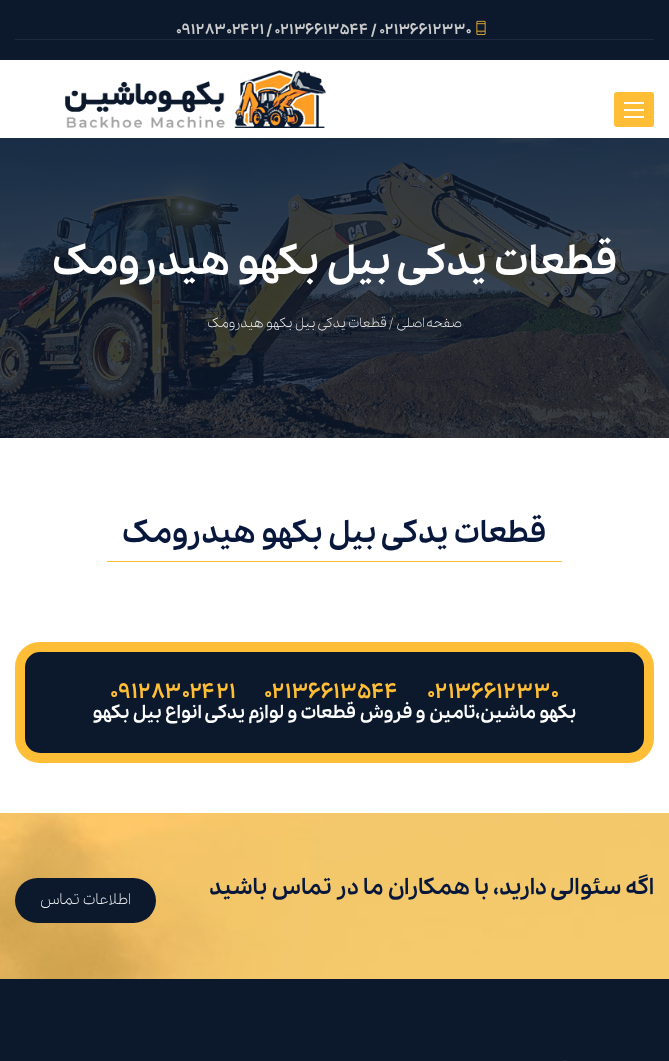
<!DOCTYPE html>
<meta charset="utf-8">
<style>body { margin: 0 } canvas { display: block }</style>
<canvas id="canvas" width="669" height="1061"></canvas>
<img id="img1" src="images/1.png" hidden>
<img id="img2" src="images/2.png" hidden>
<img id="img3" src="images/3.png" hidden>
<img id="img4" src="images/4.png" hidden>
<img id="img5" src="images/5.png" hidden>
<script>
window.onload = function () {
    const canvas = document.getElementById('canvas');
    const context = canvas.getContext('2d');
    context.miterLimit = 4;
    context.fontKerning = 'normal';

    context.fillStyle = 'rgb(255, 255, 255)';
    context.fillRect(0, 0, 669, 1061);
    context.fillStyle = 'rgb(12, 25, 45)';
    context.fillRect(0, 0, 669, 60);
    context.drawImage(document.getElementById('img1'), 476, 20, 10, 15);
    context.fillStyle = 'rgb(29, 41, 60)';
    context.fillRect(15, 39, 639, 1);
    context.fillStyle = 'rgb(255, 190, 54)';
    context.beginPath();
    context.roundRect(614, 92, 40, 35, 3);
    context.fill();
    context.fillStyle = 'rgb(255, 255, 255)';
    context.fillRect(624, 102, 20, 2);
    context.fillRect(624, 109, 20, 2);
    context.fillRect(624, 116, 20, 2);
    context.drawImage(document.getElementById('img2'), 65, 70, 261, 58);
    context.drawImage(document.getElementById('img3'), 0, 138, 669, 300);
    context.fillStyle = 'rgb(255, 190, 54)';
    context.fillRect(107, 561, 455, 1);
    context.fillStyle = 'rgb(12, 25, 45)';
    context.beginPath();
    context.roundRect(20, 647, 629, 111, 20);
    context.fill();
    context.strokeStyle = 'rgb(255, 190, 54)';
    context.lineWidth = 10;
    context.stroke();
    context.drawImage(document.getElementById('img4'), 0, 813, 669, 166);
    context.beginPath();
    context.roundRect(15, 878, 141, 45, 22.5);
    context.fill();
    context.fillRect(0, 979, 669, 82);
    context.drawImage(document.getElementById('img5'), 563, 1060, 4, 1);
    context.font = 'bold 14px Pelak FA';
    context.fillStyle = 'rgb(203, 203, 203)';
    context.fillText('09128302421 / 02136613544 / 02136612330', 176, 34);
    context.direction = 'rtl';
    context.font = 'bold 40px Pelak FA';
    context.fillStyle = 'rgb(255, 255, 255)';
    context.fillText('قطعات یدکی بیل بکهو هیدرومک', 617, 274);
    context.wordSpacing = '-1px';
    context.font = '300 13px Pelak FA';
    context.fillText('صفحه اصلی', 462, 327);
    context.wordSpacing = '0px';
    context.direction = 'ltr';
    context.fillStyle = 'rgb(203, 203, 203)';
    context.fillText('/', 389, 327);
    context.direction = 'rtl';
    context.fillStyle = 'rgb(255, 255, 255)';
    context.fillText('قطعات یدکی بیل بکهو هیدرومک', 387, 327);
    context.font = 'bold 30px Pelak FA';
    context.fillStyle = 'rgb(8, 24, 60)';
    context.fillText('قطعات یدکی بیل بکهو هیدرومک', 546, 542);
    context.direction = 'ltr';
    context.font = 'bold 20px Pelak FA';
    context.fillStyle = 'rgb(255, 190, 54)';
    context.fillText('02136612330', 427, 698);
    context.fillText('02136613544', 264, 698);
    context.fillText('09128302421', 110, 698);
    context.direction = 'rtl';
    context.font = 'bold 18px Pelak FA';
    context.fillStyle = 'rgb(255, 255, 255)';
    context.fillText('بکهو ماشین،تامین و فروش قطعات و لوازم یدکی انواع بیل بکهو', 576, 718);
    context.font = 'bold 22px Pelak FA';
    context.fillStyle = 'rgb(8, 24, 60)';
    context.fillText('اگه سئوالی دارید، با همکاران ما در تماس باشید', 654, 894);
    context.font = '300 15px Pelak FA';
    context.fillStyle = 'rgb(255, 255, 255)';
    context.fillText('اطلاعات تماس', 131, 904);
};
</script>
